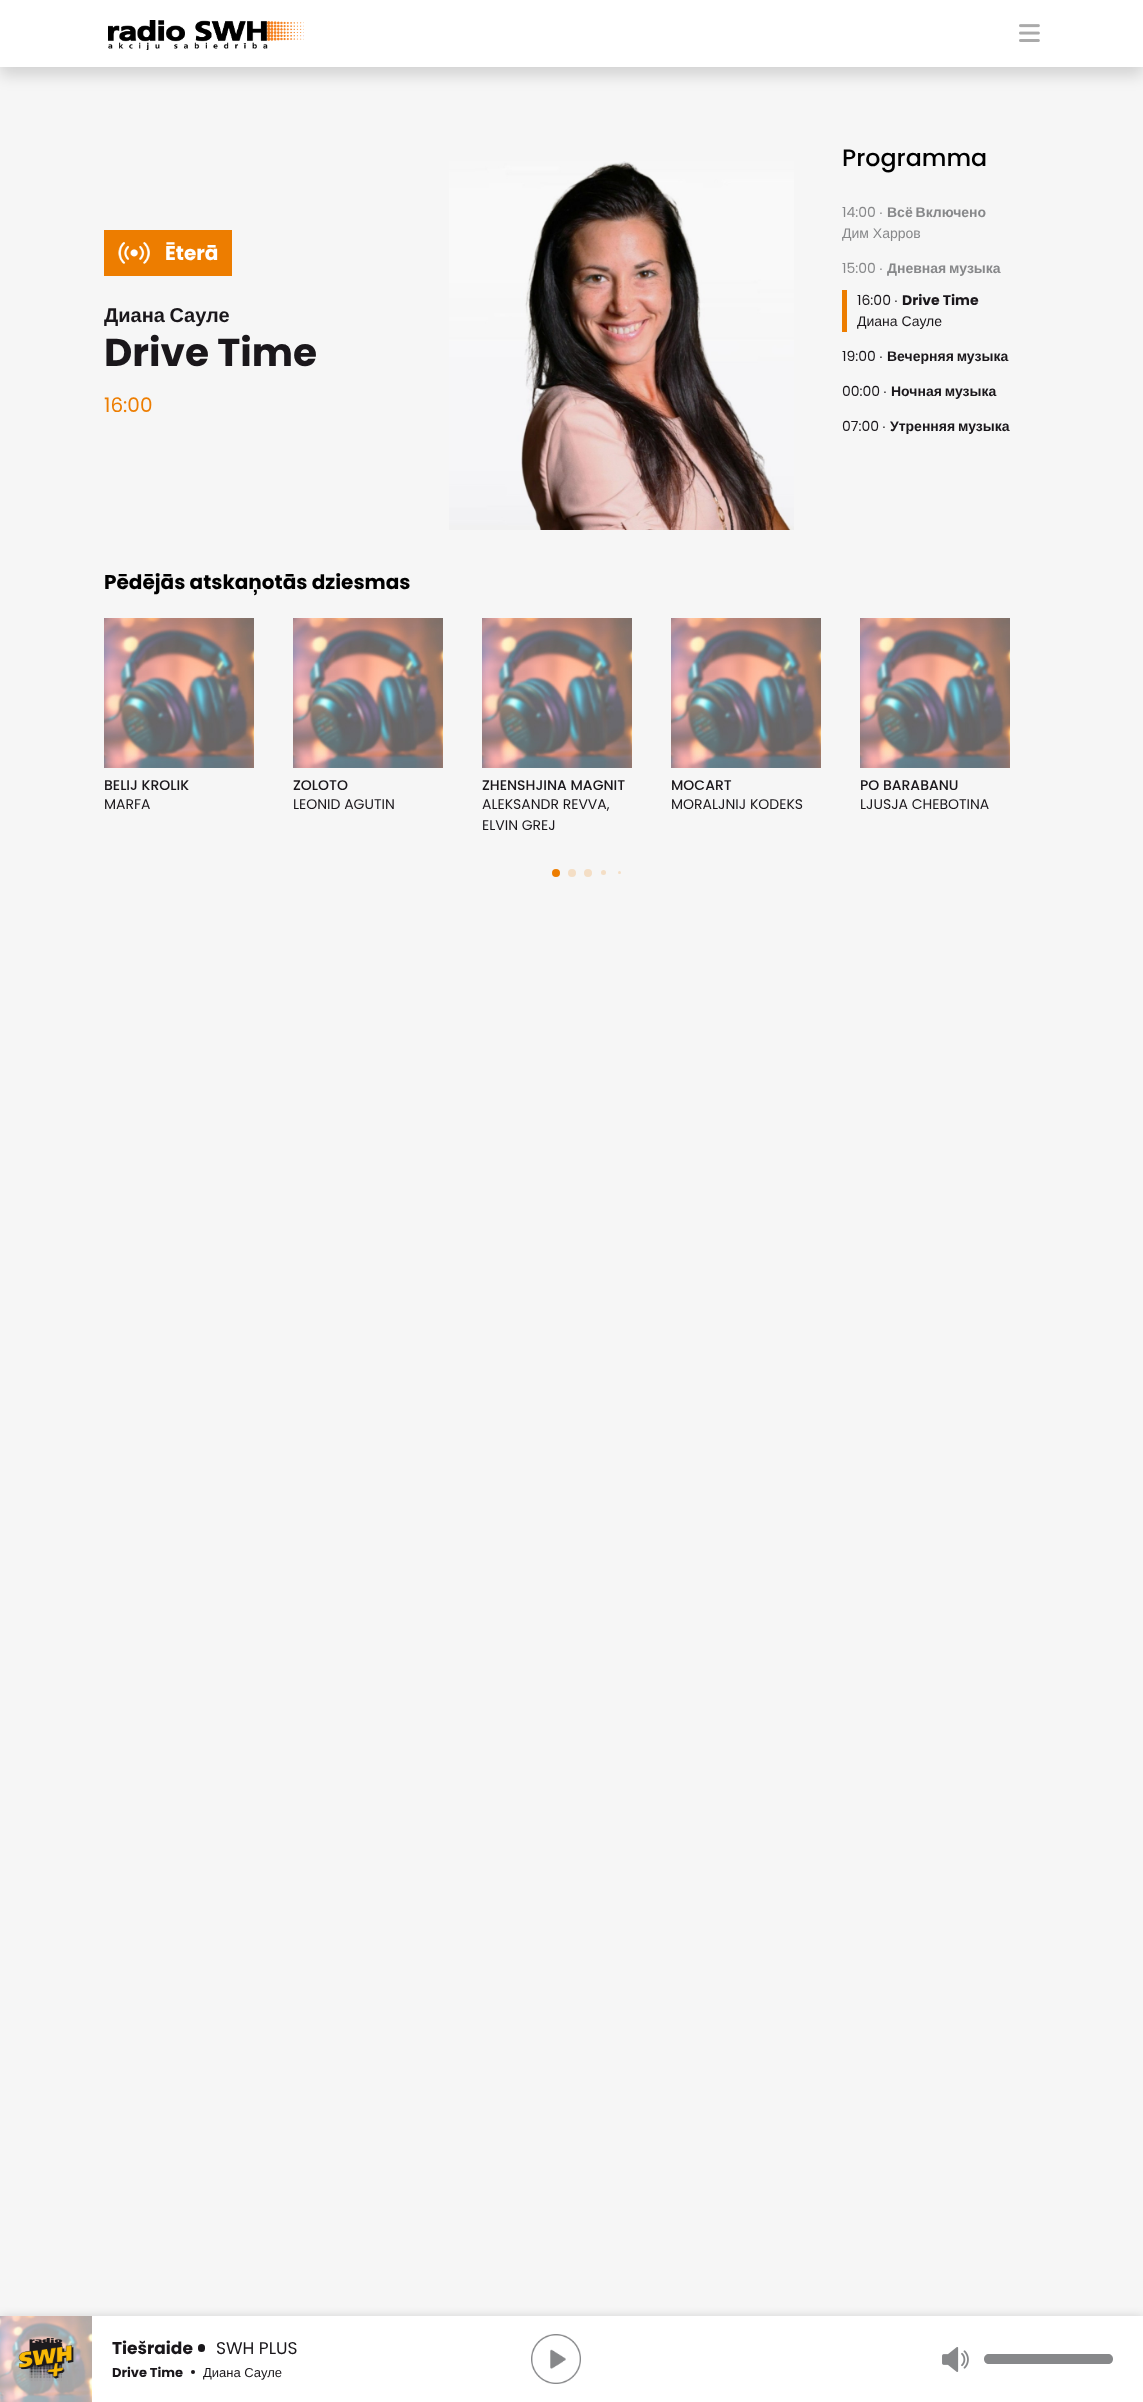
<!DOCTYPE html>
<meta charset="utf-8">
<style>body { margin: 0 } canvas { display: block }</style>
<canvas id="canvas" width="1143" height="2402"></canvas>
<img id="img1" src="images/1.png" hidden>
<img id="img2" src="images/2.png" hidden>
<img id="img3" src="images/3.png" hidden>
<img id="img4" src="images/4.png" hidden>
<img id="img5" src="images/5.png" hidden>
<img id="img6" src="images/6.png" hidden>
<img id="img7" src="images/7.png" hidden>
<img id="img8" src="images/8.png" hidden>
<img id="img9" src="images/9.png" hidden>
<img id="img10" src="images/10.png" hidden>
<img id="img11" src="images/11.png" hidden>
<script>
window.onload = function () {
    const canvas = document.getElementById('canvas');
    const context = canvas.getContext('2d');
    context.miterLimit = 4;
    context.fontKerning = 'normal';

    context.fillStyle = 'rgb(246, 246, 246)';
    context.fillRect(0, 0, 1143, 2402);
    context.fillStyle = 'rgba(0, 0, 0, 0.15)';
    context.filter = 'blur(8px)';
    context.beginPath();
    context.rect(0, 8, 1143, 67);
    context.fill();
    context.filter = 'none';
    context.fillStyle = 'rgb(255, 255, 255)';
    context.fillRect(0, 0, 1143, 67);
    context.drawImage(document.getElementById('img1'), 108, 20, 196, 30);
    context.drawImage(document.getElementById('img2'), 1019, 24, 21, 18);
    context.fillStyle = 'rgb(237, 125, 0)';
    context.fillRect(104, 230, 128, 46);
    context.drawImage(document.getElementById('img3'), 118, 242, 32, 22);
    context.drawImage(document.getElementById('img4'), 449, 161, 345, 369);
    context.fillRect(842, 290, 5, 42);
    context.drawImage(document.getElementById('img5'), 104, 618, 150, 150);
    context.drawImage(document.getElementById('img6'), 293, 618, 150, 150);
    context.drawImage(document.getElementById('img7'), 482, 618, 150, 150);
    context.drawImage(document.getElementById('img8'), 671, 618, 150, 150);
    context.drawImage(document.getElementById('img6'), 860, 618, 150, 150);
    context.beginPath();
    context.arc(556, 873, 4, 0, 2 * Math.PI);
    context.fill();
    context.fillStyle = 'rgb(244, 222, 197)';
    context.beginPath();
    context.arc(572, 873, 4, 0, 2 * Math.PI);
    context.fill();
    context.beginPath();
    context.arc(588, 873, 4, 0, 2 * Math.PI);
    context.fill();
    context.beginPath();
    context.arc(603.5, 872.5, 2.5, 0, 2 * Math.PI);
    context.fill();
    context.beginPath();
    context.arc(619.5, 872.5, 1.5, 0, 2 * Math.PI);
    context.fill();
    context.fillStyle = 'rgba(0, 0, 0, 0.14)';
    context.filter = 'blur(5px)';
    context.beginPath();
    context.rect(0, 2316, 1143, 86);
    context.fill();
    context.filter = 'none';
    context.fillStyle = 'rgb(255, 255, 255)';
    context.fillRect(92, 2316, 1051, 86);
    context.drawImage(document.getElementById('img9'), 0, 2316, 92, 86);
    context.fillStyle = 'rgb(26, 23, 27)';
    context.beginPath();
    context.roundRect(198, 2344, 7, 8, 3.5);
    context.fill();
    context.beginPath();
    context.arc(193, 2372, 2, 0, 2 * Math.PI);
    context.fill();
    context.drawImage(document.getElementById('img10'), 531, 2334, 50, 50);
    context.drawImage(document.getElementById('img11'), 942, 2347, 27, 25);
    context.fillStyle = 'rgb(135, 136, 138)';
    context.beginPath();
    context.moveTo(989, 2354);
    context.lineTo(1108, 2354);
    context.bezierCurveTo(1111, 2354, 1113, 2356, 1113, 2359);
    context.bezierCurveTo(1113, 2362, 1111, 2364, 1108, 2364);
    context.lineTo(989, 2364);
    context.bezierCurveTo(986, 2364, 984, 2362, 984, 2359);
    context.bezierCurveTo(984, 2356, 986, 2354, 989, 2354);
    context.closePath();
    context.fill();
    context.font = 'bold 20px Poppins';
    context.fillStyle = 'rgb(255, 255, 255)';
    context.fillText('Ēterā', 165, 260);
    context.wordSpacing = '-1px';
    context.font = 'bold 20px Liberation Sans';
    context.fillStyle = 'rgb(26, 23, 27)';
    context.fillText('Диана Сауле', 104, 322);
    context.wordSpacing = '0px';
    context.font = 'bold 39px Poppins';
    context.fillText('Drive Time', 104, 366);
    context.font = '20px Poppins';
    context.fillStyle = 'rgb(237, 125, 0)';
    context.fillText('16:00', 104, 412);
    context.font = '500 23.75px Poppins';
    context.fillStyle = 'rgb(0, 0, 0)';
    context.fillText('Programma', 842, 166);
    context.font = '14px Poppins';
    context.fillStyle = 'rgb(135, 136, 138)';
    context.fillText('14:00', 842, 217);
    context.font = '14px Liberation Sans';
    context.fillText('∙', 879, 217);
    context.wordSpacing = '-1px';
    context.font = 'bold 14px Liberation Sans';
    context.fillText('Всё Включено', 887, 217);
    context.wordSpacing = '0px';
    context.font = '14px Liberation Sans';
    context.fillText('Дим Харров', 842, 238);
    context.font = '14px Poppins';
    context.fillText('15:00', 842, 273);
    context.font = '14px Liberation Sans';
    context.fillText('∙', 879, 273);
    context.wordSpacing = '-1px';
    context.font = 'bold 14px Liberation Sans';
    context.fillText('Дневная музыка', 887, 273);
    context.wordSpacing = '0px';
    context.font = '14px Poppins';
    context.fillStyle = 'rgb(26, 23, 27)';
    context.fillText('16:00', 857, 305);
    context.font = '14px Liberation Sans';
    context.fillText('∙', 894, 305);
    context.font = 'bold 14px Poppins';
    context.fillText('Drive Time', 902, 305);
    context.font = '14px Liberation Sans';
    context.fillText('Диана Сауле', 857, 326);
    context.font = '14px Poppins';
    context.fillText('19:00', 842, 361);
    context.font = '14px Liberation Sans';
    context.fillText('∙', 879, 361);
    context.wordSpacing = '-1px';
    context.font = 'bold 14px Liberation Sans';
    context.fillText('Вечерняя музыка', 887, 361);
    context.wordSpacing = '0px';
    context.font = '14px Poppins';
    context.fillText('00:00', 842, 396);
    context.font = '14px Liberation Sans';
    context.fillText('∙', 883, 396);
    context.wordSpacing = '-1px';
    context.font = 'bold 14px Liberation Sans';
    context.fillText('Ночная музыка', 891, 396);
    context.wordSpacing = '0px';
    context.font = '14px Poppins';
    context.fillText('07:00', 842, 431);
    context.font = '14px Liberation Sans';
    context.fillText('∙', 882, 431);
    context.wordSpacing = '-1px';
    context.font = 'bold 14px Liberation Sans';
    context.fillText('Утренняя музыка', 890, 431);
    context.wordSpacing = '0px';
    context.font = 'bold 20px Poppins';
    context.fillStyle = 'rgb(0, 0, 0)';
    context.fillText('Pēdējās atskaņotās dziesmas', 104, 589);
    context.font = '500 14px Poppins';
    context.fillStyle = 'rgb(26, 23, 27)';
    context.fillText('BELIJ KROLIK', 104, 790);
    context.font = '14px Poppins';
    context.fillText('MARFA', 104, 809);
    context.font = '500 14px Poppins';
    context.fillText('ZOLOTO', 293, 790);
    context.font = '14px Poppins';
    context.fillText('LEONID AGUTIN', 293, 809);
    context.font = '500 14px Poppins';
    context.fillText('ZHENSHJINA MAGNIT', 482, 790);
    context.font = '14px Poppins';
    context.fillText('ALEKSANDR REVVA,', 482, 809);
    context.fillText('ELVIN GREJ', 482, 830);
    context.font = '500 14px Poppins';
    context.fillText('MOCART', 671, 790);
    context.font = '14px Poppins';
    context.fillText('MORALJNIJ KODEKS', 671, 809);
    context.font = '500 14px Poppins';
    context.fillText('PO BARABANU', 860, 790);
    context.font = '14px Poppins';
    context.fillText('LJUSJA CHEBOTINA', 860, 809);
    context.font = 'bold 17px Poppins';
    context.fillText('Tiešraide', 112, 2354);
    context.font = '17px Poppins';
    context.fillText('SWH PLUS', 216, 2354);
    context.font = 'bold 13px Poppins';
    context.fillText('Drive Time', 112, 2377);
    context.font = '13px Liberation Sans';
    context.fillText('Диана Сауле', 203, 2377);
};
</script>
